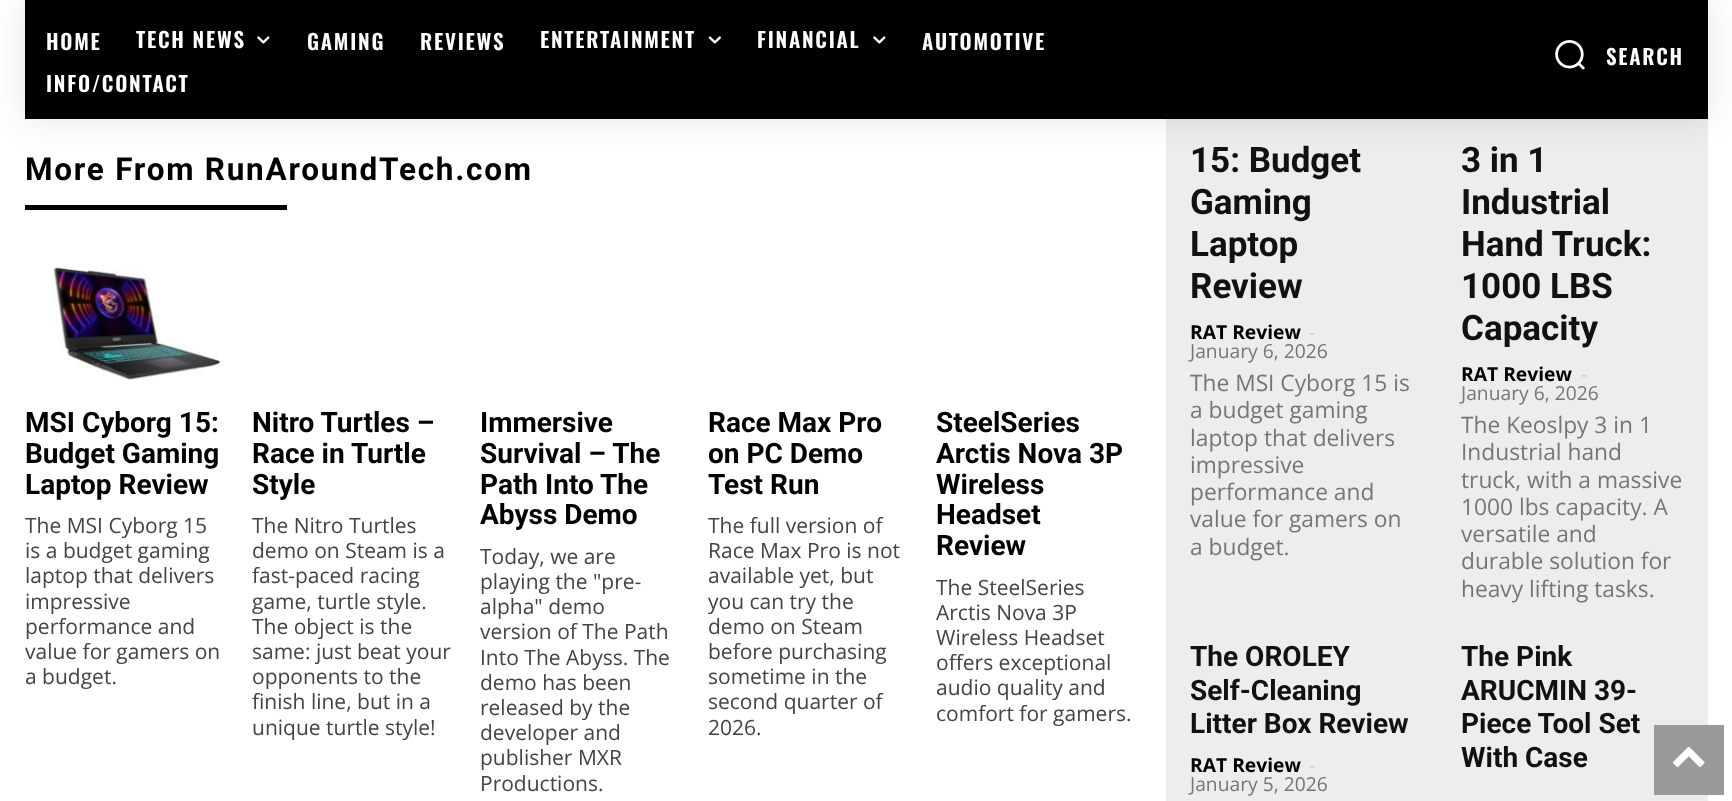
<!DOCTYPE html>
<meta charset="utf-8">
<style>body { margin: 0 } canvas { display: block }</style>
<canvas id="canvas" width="1732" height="801"></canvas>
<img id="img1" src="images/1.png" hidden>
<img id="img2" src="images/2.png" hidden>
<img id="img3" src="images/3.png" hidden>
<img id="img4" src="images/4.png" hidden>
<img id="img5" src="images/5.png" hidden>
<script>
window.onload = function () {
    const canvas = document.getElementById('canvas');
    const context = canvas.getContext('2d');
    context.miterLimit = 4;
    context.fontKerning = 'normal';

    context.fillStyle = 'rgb(255, 255, 255)';
    context.fillRect(0, 0, 1732, 801);
    context.fillStyle = 'rgb(237, 237, 237)';
    context.fillRect(1166, 119, 542, 682);
    context.fillStyle = 'rgba(0, 0, 0, 0.1)';
    context.filter = 'blur(17.5px)';
    context.beginPath();
    context.rect(25, 0, 1683, 119);
    context.fill();
    context.filter = 'none';
    context.fillStyle = 'rgb(0, 0, 0)';
    context.fillRect(25, 0, 1683, 119);
    context.drawImage(document.getElementById('img1'), 257, 36, 13, 8);
    context.drawImage(document.getElementById('img2'), 708, 36, 13, 8);
    context.drawImage(document.getElementById('img1'), 873, 36, 13, 8);
    context.drawImage(document.getElementById('img3'), 1555, 40, 30, 30);
    context.fillRect(25, 205, 262, 5);
    context.drawImage(document.getElementById('img4'), 52, 264, 172, 118);
    context.fillStyle = 'rgb(153, 153, 153)';
    context.fillRect(1654, 725, 70, 70);
    context.drawImage(document.getElementById('img5'), 1673, 746, 32, 21);
    context.letterSpacing = '1.75px';
    context.font = '600 21px Oswald';
    context.fillStyle = 'rgb(255, 255, 255)';
    context.fillText('HOME', 46, 50);
    context.fillText('TECH NEWS', 136, 48);
    context.fillText('GAMING', 307, 50);
    context.fillText('REVIEWS', 420, 50);
    context.fillText('ENTERTAINMENT', 540, 48);
    context.fillText('FINANCIAL', 757, 48);
    context.fillText('AUTOMOTIVE', 922, 50);
    context.fillText('INFO/CONTACT', 46, 92);
    context.fillText('SEARCH', 1606, 65);
    context.font = 'bold 31.5px Roboto';
    context.fillStyle = 'rgb(0, 0, 0)';
    context.fillText('More From RunAroundTech.com', 25, 180);
    context.letterSpacing = '0px';
    context.font = 'bold 28px Roboto';
    context.fillText('MSI Cyborg 15:', 25, 432);
    context.fillText('Budget Gaming', 25, 463);
    context.fillText('Laptop Review', 25, 494);
    context.font = '21px Open Sans';
    context.fillStyle = 'rgb(68, 68, 68)';
    context.fillText('The MSI Cyborg 15', 25, 533);
    context.fillText('is a budget gaming', 25, 558);
    context.fillText('laptop that delivers', 25, 583);
    context.fillText('impressive', 25, 609);
    context.fillText('performance and', 25, 634);
    context.fillText('value for gamers on', 25, 659);
    context.fillText('a budget.', 25, 684);
    context.font = 'bold 28px Roboto';
    context.fillStyle = 'rgb(0, 0, 0)';
    context.fillText('Nitro Turtles –', 252, 432);
    context.fillText('Race in Turtle', 252, 463);
    context.fillText('Style', 252, 494);
    context.font = '21px Open Sans';
    context.fillStyle = 'rgb(68, 68, 68)';
    context.fillText('The Nitro Turtles', 252, 533);
    context.fillText('demo on Steam is a', 252, 558);
    context.fillText('fast-paced racing', 252, 583);
    context.fillText('game, turtle style.', 252, 609);
    context.fillText('The object is the', 252, 634);
    context.fillText('same: just beat your', 252, 659);
    context.fillText('opponents to the', 252, 684);
    context.fillText('finish line, but in a', 252, 709);
    context.fillText('unique turtle style!', 252, 735);
    context.font = 'bold 28px Roboto';
    context.fillStyle = 'rgb(0, 0, 0)';
    context.fillText('Immersive', 480, 432);
    context.fillText('Survival – The', 480, 463);
    context.fillText('Path Into The', 480, 494);
    context.fillText('Abyss Demo', 480, 524);
    context.font = '21px Open Sans';
    context.fillStyle = 'rgb(68, 68, 68)';
    context.fillText('Today, we are', 480, 564);
    context.fillText('playing the "pre-', 480, 589);
    context.fillText('alpha" demo', 480, 614);
    context.fillText('version of The Path', 480, 639);
    context.fillText('Into The Abyss. The', 480, 665);
    context.fillText('demo has been', 480, 690);
    context.fillText('released by the', 480, 715);
    context.fillText('developer and', 480, 740);
    context.fillText('publisher MXR', 480, 765);
    context.fillText('Productions.', 480, 791);
    context.font = 'bold 28px Roboto';
    context.fillStyle = 'rgb(0, 0, 0)';
    context.fillText('Race Max Pro', 708, 432);
    context.fillText('on PC Demo', 708, 463);
    context.fillText('Test Run', 708, 494);
    context.font = '21px Open Sans';
    context.fillStyle = 'rgb(68, 68, 68)';
    context.fillText('The full version of', 708, 533);
    context.fillText('Race Max Pro is not', 708, 558);
    context.fillText('available yet, but', 708, 583);
    context.fillText('you can try the', 708, 609);
    context.fillText('demo on Steam', 708, 634);
    context.fillText('before purchasing', 708, 659);
    context.fillText('sometime in the', 708, 684);
    context.fillText('second quarter of', 708, 709);
    context.fillText('2026.', 708, 735);
    context.font = 'bold 28px Roboto';
    context.fillStyle = 'rgb(0, 0, 0)';
    context.fillText('SteelSeries', 936, 432);
    context.fillText('Arctis Nova 3P', 936, 463);
    context.fillText('Wireless', 936, 494);
    context.fillText('Headset', 936, 524);
    context.fillText('Review', 936, 555);
    context.font = '21px Open Sans';
    context.fillStyle = 'rgb(68, 68, 68)';
    context.fillText('The SteelSeries', 936, 595);
    context.fillText('Arctis Nova 3P', 936, 620);
    context.fillText('Wireless Headset', 936, 645);
    context.fillText('offers exceptional', 936, 670);
    context.fillText('audio quality and', 936, 695);
    context.fillText('comfort for gamers.', 936, 721);
    context.font = 'bold 35px Roboto';
    context.fillStyle = 'rgb(17, 17, 17)';
    context.fillText('15: Budget', 1190, 172);
    context.fillText('Gaming', 1190, 214);
    context.fillText('Laptop', 1190, 256);
    context.fillText('Review', 1190, 298);
    context.font = 'bold 19.25px Open Sans';
    context.fillStyle = 'rgb(0, 0, 0)';
    context.fillText('RAT Review', 1190, 339);
    context.font = '19.25px Open Sans';
    context.fillStyle = 'rgb(204, 204, 204)';
    context.fillText('-', 1309, 339);
    context.fillStyle = 'rgb(118, 118, 118)';
    context.fillText('January 6, 2026', 1190, 358);
    context.font = '22.75px Open Sans';
    context.fillText('The MSI Cyborg 15 is', 1190, 391);
    context.fillText('a budget gaming', 1190, 418);
    context.fillText('laptop that delivers', 1190, 446);
    context.fillText('impressive', 1190, 473);
    context.fillText('performance and', 1190, 500);
    context.fillText('value for gamers on', 1190, 527);
    context.fillText('a budget.', 1190, 555);
    context.font = 'bold 35px Roboto';
    context.fillStyle = 'rgb(17, 17, 17)';
    context.fillText('3 in 1', 1461, 172);
    context.fillText('Industrial', 1461, 214);
    context.fillText('Hand Truck:', 1461, 256);
    context.fillText('1000 LBS', 1461, 298);
    context.fillText('Capacity', 1461, 340);
    context.font = 'bold 19.25px Open Sans';
    context.fillStyle = 'rgb(0, 0, 0)';
    context.fillText('RAT Review', 1461, 381);
    context.font = '19.25px Open Sans';
    context.fillStyle = 'rgb(204, 204, 204)';
    context.fillText('-', 1581, 381);
    context.fillStyle = 'rgb(118, 118, 118)';
    context.fillText('January 6, 2026', 1461, 400);
    context.font = '22.75px Open Sans';
    context.fillText('The Keoslpy 3 in 1', 1461, 433);
    context.fillText('Industrial hand', 1461, 460);
    context.fillText('truck, with a massive', 1461, 488);
    context.fillText('1000 lbs capacity. A', 1461, 515);
    context.fillText('versatile and', 1461, 542);
    context.fillText('durable solution for', 1461, 569);
    context.fillText('heavy lifting tasks.', 1461, 597);
    context.font = 'bold 28px Roboto';
    context.fillStyle = 'rgb(17, 17, 17)';
    context.fillText('The OROLEY', 1190, 666);
    context.fillText('Self-Cleaning', 1190, 700);
    context.fillText('Litter Box Review', 1190, 733);
    context.font = 'bold 19.25px Open Sans';
    context.fillStyle = 'rgb(0, 0, 0)';
    context.fillText('RAT Review', 1190, 772);
    context.font = '19.25px Open Sans';
    context.fillStyle = 'rgb(204, 204, 204)';
    context.fillText('-', 1309, 772);
    context.fillStyle = 'rgb(118, 118, 118)';
    context.fillText('January 5, 2026', 1190, 791);
    context.font = 'bold 28px Roboto';
    context.fillStyle = 'rgb(17, 17, 17)';
    context.fillText('The Pink', 1461, 666);
    context.fillText('ARUCMIN 39-', 1461, 700);
    context.fillText('Piece Tool Set', 1461, 733);
    context.fillText('With Case', 1461, 767);
};
</script>
